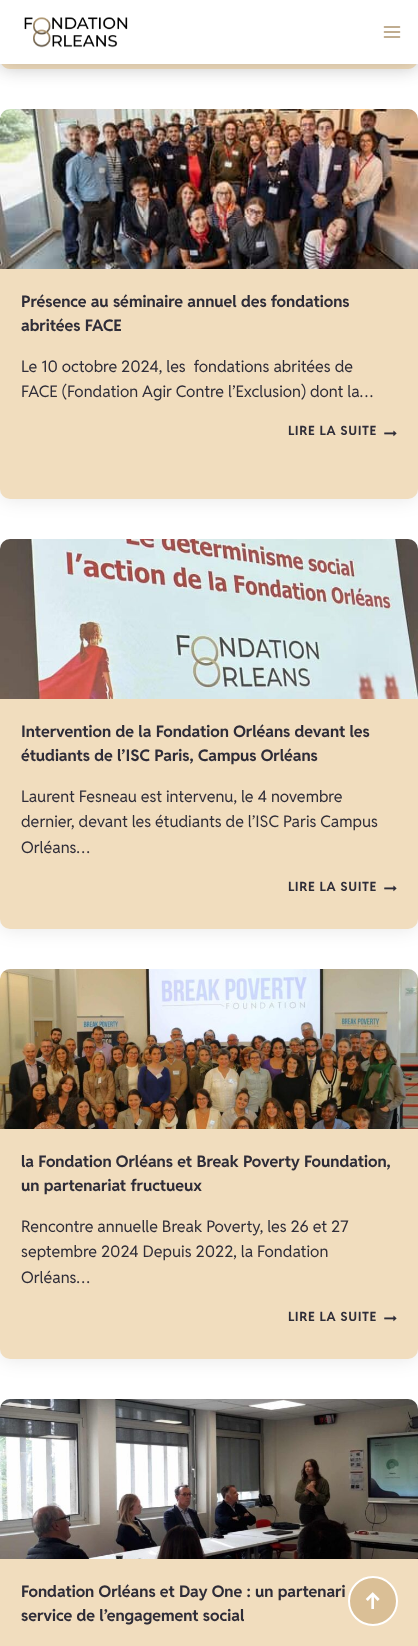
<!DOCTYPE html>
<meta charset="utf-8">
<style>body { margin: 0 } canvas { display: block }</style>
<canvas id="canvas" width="418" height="1646"></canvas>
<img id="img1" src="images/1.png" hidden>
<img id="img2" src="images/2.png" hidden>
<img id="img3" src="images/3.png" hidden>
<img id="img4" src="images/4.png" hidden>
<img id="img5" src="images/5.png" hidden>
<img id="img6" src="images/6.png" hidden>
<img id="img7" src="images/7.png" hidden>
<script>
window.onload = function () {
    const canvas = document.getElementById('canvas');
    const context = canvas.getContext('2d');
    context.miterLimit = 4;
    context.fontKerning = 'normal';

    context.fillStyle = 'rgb(255, 255, 255)';
    context.fillRect(0, 0, 418, 1646);
    context.fillStyle = 'rgba(0, 0, 0, 0.1)';
    context.filter = 'blur(10px)';
    context.beginPath();
    context.roundRect(0, -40, 418, 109, 10);
    context.fill();
    context.filter = 'none';
    context.fillStyle = 'rgb(241, 221, 190)';
    context.beginPath();
    context.moveTo(0, -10);
    context.lineTo(418, -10);
    context.lineTo(418, 59);
    context.bezierCurveTo(418, 64.5, 413.5, 69, 408, 69);
    context.lineTo(10, 69);
    context.bezierCurveTo(4.5, 69, 0, 64.5, 0, 59);
    context.closePath();
    context.fill();
    context.fillStyle = 'rgba(0, 0, 0, 0.2)';
    context.filter = 'blur(10px)';
    context.beginPath();
    context.rect(0, 0, 418, 64);
    context.fill();
    context.filter = 'none';
    context.fillStyle = 'rgb(255, 255, 255)';
    context.fillRect(0, 0, 418, 64);
    context.drawImage(document.getElementById('img1'), 24, 17, 104, 31);
    context.drawImage(document.getElementById('img2'), 383, 26, 18, 12);
    context.fillStyle = 'rgba(0, 0, 0, 0.1)';
    context.filter = 'blur(10px)';
    context.beginPath();
    context.roundRect(0, 269, 418, 230, 10);
    context.fill();
    context.filter = 'none';
    context.drawImage(document.getElementById('img3'), 0, 109, 418, 160);
    context.fillStyle = 'rgb(241, 221, 190)';
    context.beginPath();
    context.roundRect(0, 269, 418, 230, [0, 0, 10, 10]);
    context.fill();
    context.drawImage(document.getElementById('img4'), 384, 430, 13, 7);
    context.fillStyle = 'rgba(0, 0, 0, 0.1)';
    context.filter = 'blur(10px)';
    context.beginPath();
    context.roundRect(0, 699, 418, 230, 10);
    context.fill();
    context.filter = 'none';
    context.drawImage(document.getElementById('img5'), 0, 539, 418, 160);
    context.fillStyle = 'rgb(241, 221, 190)';
    context.beginPath();
    context.roundRect(0, 699, 418, 230, [0, 0, 10, 10]);
    context.fill();
    context.drawImage(document.getElementById('img4'), 384, 885, 13, 7);
    context.fillStyle = 'rgba(0, 0, 0, 0.1)';
    context.filter = 'blur(10px)';
    context.beginPath();
    context.roundRect(0, 1129, 418, 230, 10);
    context.fill();
    context.filter = 'none';
    context.drawImage(document.getElementById('img6'), 0, 969, 418, 160);
    context.fillStyle = 'rgb(241, 221, 190)';
    context.beginPath();
    context.roundRect(0, 1129, 418, 230, [0, 0, 10, 10]);
    context.fill();
    context.drawImage(document.getElementById('img4'), 384, 1315, 13, 7);
    context.drawImage(document.getElementById('img7'), 0, 1399, 418, 160);
    context.fillRect(0, 1559, 418, 87);
    context.fillStyle = 'rgb(218, 191, 150)';
    context.beginPath();
    context.arc(373, 1601, 24, 0, 2 * Math.PI);
    context.fill();
    context.strokeStyle = 'rgb(255, 255, 255)';
    context.lineWidth = 2;
    context.stroke();
    context.font = 'bold 16px Reddit Sans';
    context.fillStyle = 'rgb(47, 45, 56)';
    context.fillText('Présence au séminaire annuel des fondations', 21, 307);
    context.fillText('abritées FACE', 21, 331);
    context.font = '16px Reddit Sans';
    context.fillText('Le 10 octobre 2024, les  fondations abritées de', 21, 372);
    context.fillText('FACE (Fondation Agir Contre l’Exclusion) dont la…', 21, 397);
    context.letterSpacing = '0.6px';
    context.font = 'bold 12.75px Reddit Sans';
    context.fillText('LIRE LA SUITE', 288, 435);
    context.letterSpacing = '0px';
    context.font = 'bold 16px Reddit Sans';
    context.fillText('Intervention de la Fondation Orléans devant les', 21, 737);
    context.fillText('étudiants de l’ISC Paris, Campus Orléans', 21, 761);
    context.font = '16px Reddit Sans';
    context.fillText('Laurent Fesneau est intervenu, le 4 novembre', 21, 802);
    context.fillText('dernier, devant les étudiants de l’ISC Paris Campus', 21, 827);
    context.fillText('Orléans…', 21, 853);
    context.letterSpacing = '0.6px';
    context.font = 'bold 12.75px Reddit Sans';
    context.fillText('LIRE LA SUITE', 288, 891);
    context.letterSpacing = '0px';
    context.font = 'bold 16px Reddit Sans';
    context.fillText('la Fondation Orléans et Break Poverty Foundation,', 21, 1167);
    context.fillText('un partenariat fructueux', 21, 1191);
    context.font = '16px Reddit Sans';
    context.fillText('Rencontre annuelle Break Poverty, les 26 et 27', 21, 1232);
    context.fillText('septembre 2024 Depuis 2022, la Fondation', 21, 1257);
    context.fillText('Orléans…', 21, 1283);
    context.letterSpacing = '0.6px';
    context.font = 'bold 12.75px Reddit Sans';
    context.fillText('LIRE LA SUITE', 288, 1321);
    context.letterSpacing = '0px';
    context.font = 'bold 16px Reddit Sans';
    context.fillText('Fondation Orléans et Day One : un partenari', 21, 1597);
    context.fillText('service de l’engagement social', 21, 1621);
    context.font = 'bold 24px Reddit Sans';
    context.fillStyle = 'rgb(255, 255, 255)';
    context.fillText('↑', 365, 1609);
};
</script>
